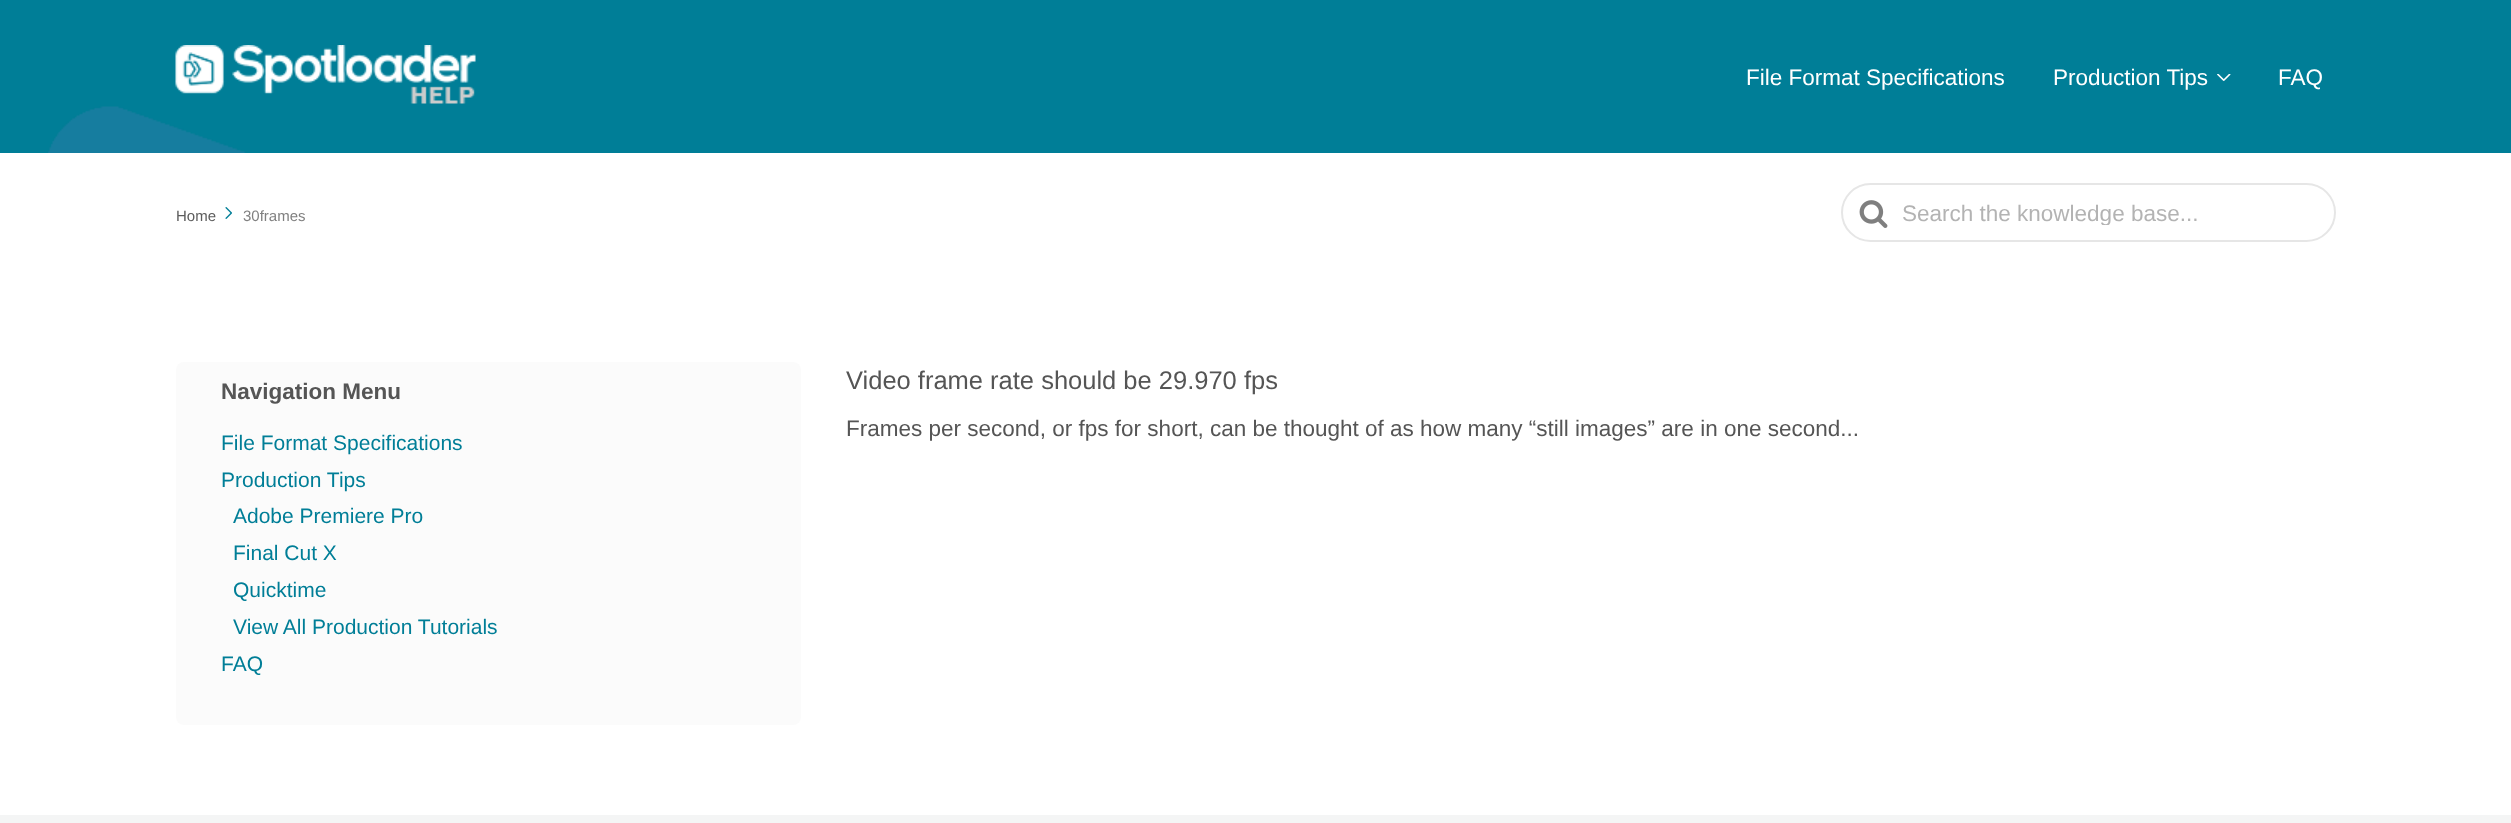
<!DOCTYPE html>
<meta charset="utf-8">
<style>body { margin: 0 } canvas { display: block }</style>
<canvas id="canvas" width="2511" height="823"></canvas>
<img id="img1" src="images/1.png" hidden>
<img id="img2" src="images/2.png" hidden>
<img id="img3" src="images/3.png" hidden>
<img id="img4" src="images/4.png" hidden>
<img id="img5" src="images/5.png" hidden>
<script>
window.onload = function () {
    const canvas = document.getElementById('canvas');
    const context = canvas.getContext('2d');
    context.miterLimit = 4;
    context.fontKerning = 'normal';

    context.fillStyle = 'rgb(255, 255, 255)';
    context.fillRect(0, 0, 2511, 823);
    context.fillStyle = 'rgb(0, 126, 151)';
    context.fillRect(0, 0, 2511, 153);
    context.drawImage(document.getElementById('img1'), 48, 106, 198, 47);
    context.drawImage(document.getElementById('img2'), 175, 45, 301, 59);
    context.drawImage(document.getElementById('img3'), 2217, 74, 14, 7);
    context.drawImage(document.getElementById('img4'), 225, 207, 7, 12);
    context.beginPath();
    context.roundRect(1842, 184, 493, 57, 28.5);
    context.strokeStyle = 'rgb(230, 230, 230)';
    context.lineWidth = 2;
    context.stroke();
    context.drawImage(document.getElementById('img5'), 1859, 200, 29, 28);
    context.fillStyle = 'rgb(251, 251, 251)';
    context.beginPath();
    context.roundRect(176, 362, 625, 363, 8);
    context.fill();
    context.fillStyle = 'rgb(244, 245, 245)';
    context.fillRect(0, 815, 2511, 8);
    context.font = '22.5px Liberation Sans';
    context.fillStyle = 'rgb(255, 255, 255)';
    context.fillText('File Format Specifications', 1746, 85);
    context.fillText('Production Tips', 2053, 85);
    context.fillText('FAQ', 2278, 85);
    context.font = '15px Liberation Sans';
    context.fillStyle = 'rgb(92, 92, 92)';
    context.fillText('Home', 176, 221);
    context.fillStyle = 'rgb(128, 128, 128)';
    context.fillText('30frames', 243, 221);
    context.save();
    context.beginPath();
    context.rect(1902, 200, 410, 25);
    context.clip();
    context.font = '22.5px Liberation Sans';
    context.fillStyle = 'rgb(179, 179, 179)';
    context.fillText('Search the knowledge base...', 1902, 221);
    context.restore();
    context.font = 'bold 22.5px Liberation Sans';
    context.fillStyle = 'rgb(85, 85, 85)';
    context.fillText('Navigation Menu', 221, 399);
    context.font = '21px Liberation Sans';
    context.fillStyle = 'rgb(0, 126, 151)';
    context.fillText('File Format Specifications', 221, 450);
    context.fillText('Production Tips', 221, 487);
    context.fillText('Adobe Premiere Pro', 233, 523);
    context.fillText('Final Cut X', 233, 560);
    context.fillText('Quicktime', 233, 597);
    context.fillText('View All Production Tutorials', 233, 634);
    context.fillText('FAQ', 221, 671);
    context.font = '25.5px Liberation Sans';
    context.fillStyle = 'rgb(85, 85, 85)';
    context.fillText('Video frame rate should be 29.970 fps', 846, 389);
    context.font = '22.5px Liberation Sans';
    context.fillText('Frames per second, or fps for short, can be thought of as how many “still images” are in one second...', 846, 436);
};
</script>
